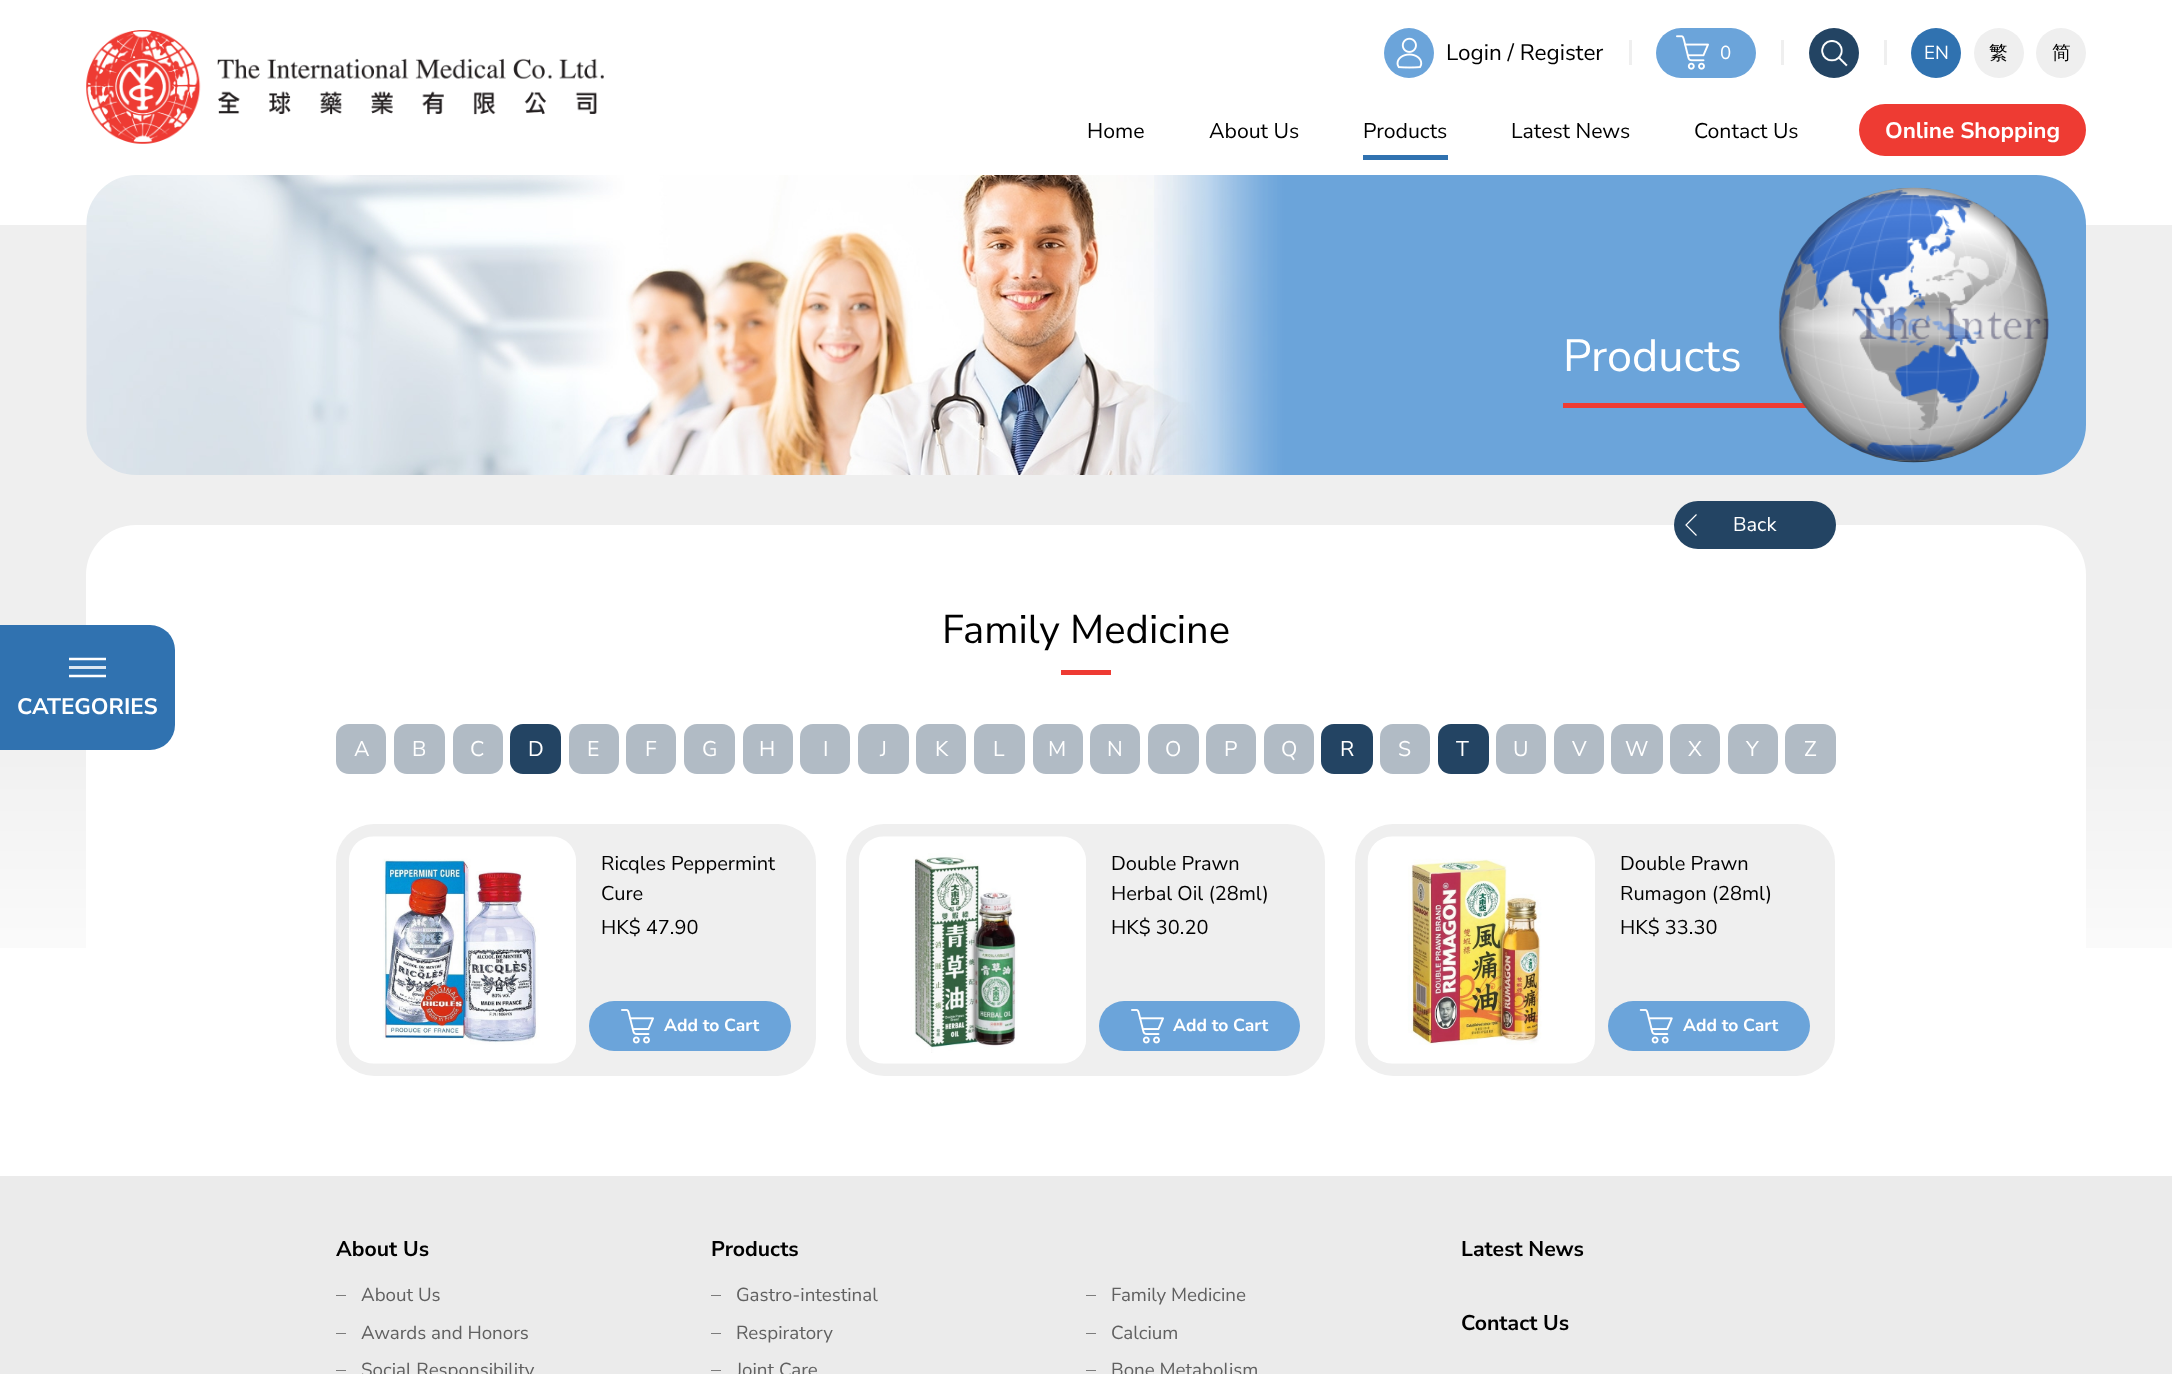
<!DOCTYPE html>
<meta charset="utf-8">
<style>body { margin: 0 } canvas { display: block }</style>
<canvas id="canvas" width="2172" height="1374"></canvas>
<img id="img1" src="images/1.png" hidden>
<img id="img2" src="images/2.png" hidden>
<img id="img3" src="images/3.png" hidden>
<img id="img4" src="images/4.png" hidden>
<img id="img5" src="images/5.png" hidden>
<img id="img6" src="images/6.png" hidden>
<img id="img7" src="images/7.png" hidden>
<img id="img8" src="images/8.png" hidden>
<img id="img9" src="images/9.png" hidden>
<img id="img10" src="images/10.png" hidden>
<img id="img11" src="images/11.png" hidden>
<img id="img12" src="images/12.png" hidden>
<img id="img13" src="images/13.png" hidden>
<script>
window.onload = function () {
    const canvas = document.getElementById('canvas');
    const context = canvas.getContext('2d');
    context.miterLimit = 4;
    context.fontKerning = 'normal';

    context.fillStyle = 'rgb(255, 255, 255)';
    context.fillRect(0, 0, 2172, 1374);
    context.drawImage(document.getElementById('img1'), 86, 30, 518, 114);
    context.fillStyle = 'rgb(107, 164, 218)';
    context.beginPath();
    context.arc(1409, 53, 25, 0, 2 * Math.PI);
    context.fill();
    context.drawImage(document.getElementById('img2'), 1396, 37, 27, 32);
    context.fillStyle = 'rgb(239, 239, 239)';
    context.fillRect(1629, 40, 3, 25);
    context.fillStyle = 'rgb(107, 164, 218)';
    context.beginPath();
    context.roundRect(1656, 28, 100, 50, 25);
    context.fill();
    context.drawImage(document.getElementById('img3'), 1676, 35, 33, 35);
    context.fillStyle = 'rgb(239, 239, 239)';
    context.fillRect(1781, 40, 3, 25);
    context.fillStyle = 'rgb(35, 68, 99)';
    context.beginPath();
    context.arc(1834, 53, 25, 0, 2 * Math.PI);
    context.fill();
    context.drawImage(document.getElementById('img4'), 1821, 40, 27, 27);
    context.fillStyle = 'rgb(239, 239, 239)';
    context.fillRect(1884, 40, 3, 25);
    context.fillStyle = 'rgb(48, 114, 176)';
    context.beginPath();
    context.arc(1936, 53, 25, 0, 2 * Math.PI);
    context.fill();
    context.fillStyle = 'rgb(239, 239, 239)';
    context.beginPath();
    context.arc(1999, 53, 25, 0, 2 * Math.PI);
    context.fill();
    context.beginPath();
    context.arc(2061, 53, 25, 0, 2 * Math.PI);
    context.fill();
    context.fillStyle = 'rgb(48, 114, 176)';
    context.fillRect(1363, 155, 85, 5);
    context.fillStyle = 'rgb(238, 59, 51)';
    context.beginPath();
    context.roundRect(1859, 104, 227, 52, 26);
    context.fill();
    context.drawImage(document.getElementById('img5'), 0, 225, 2172, 723);
    context.drawImage(document.getElementById('img6'), 86, 175, 1196, 300);
    context.fillStyle = 'rgb(107, 164, 218)';
    context.beginPath();
    context.roundRect(1286, 175, 800, 300, [0, 50, 50, 0]);
    context.fill();
    context.drawImage(document.getElementById('img7'), 1154, 175, 132, 300);
    context.fillStyle = 'rgb(238, 59, 51)';
    context.fillRect(1563, 403, 244, 5);
    context.drawImage(document.getElementById('img8'), 1778, 187, 271, 276);
    context.fillStyle = 'rgb(255, 255, 255)';
    context.beginPath();
    context.roundRect(86, 525, 2000, 651, [50, 50, 0, 0]);
    context.fill();
    context.fillStyle = 'rgb(48, 114, 176)';
    context.beginPath();
    context.roundRect(0, 625, 175, 125, [0, 25, 25, 0]);
    context.fill();
    context.fillStyle = 'rgb(221, 232, 242)';
    context.fillRect(69, 666, 37, 3);
    context.beginPath();
    context.moveTo(69, 676);
    context.lineTo(106, 676);
    context.moveTo(69, 659);
    context.lineTo(106, 659);
    context.strokeStyle = 'rgb(255, 255, 255)';
    context.lineWidth = 2.5;
    context.stroke();
    context.fillStyle = 'rgb(35, 68, 99)';
    context.beginPath();
    context.roundRect(1674, 501, 162, 48, 24);
    context.fill();
    context.beginPath();
    context.moveTo(1696.5, 514.5);
    context.lineTo(1686, 525);
    context.lineTo(1696.5, 535.5);
    context.lineWidth = 1.2;
    context.stroke();
    context.fillStyle = 'rgb(238, 59, 51)';
    context.fillRect(1061, 670, 50, 5);
    context.fillStyle = 'rgb(177, 187, 197)';
    context.beginPath();
    context.roundRect(336, 724, 50, 50, 13);
    context.fill();
    context.beginPath();
    context.roundRect(394, 724, 51, 50, 13);
    context.fill();
    context.beginPath();
    context.roundRect(453, 724, 50, 50, 13);
    context.fill();
    context.fillStyle = 'rgb(35, 68, 99)';
    context.beginPath();
    context.roundRect(510, 724, 51, 50, 13);
    context.fill();
    context.fillStyle = 'rgb(177, 187, 197)';
    context.beginPath();
    context.roundRect(569, 724, 50, 50, 13);
    context.fill();
    context.beginPath();
    context.roundRect(626, 724, 50, 50, 13);
    context.fill();
    context.beginPath();
    context.roundRect(684, 724, 51, 50, 13);
    context.fill();
    context.beginPath();
    context.roundRect(743, 724, 50, 50, 13);
    context.fill();
    context.beginPath();
    context.roundRect(800, 724, 50, 50, 13);
    context.fill();
    context.beginPath();
    context.roundRect(858, 724, 51, 50, 13);
    context.fill();
    context.beginPath();
    context.roundRect(916, 724, 50, 50, 13);
    context.fill();
    context.beginPath();
    context.roundRect(974, 724, 51, 50, 13);
    context.fill();
    context.beginPath();
    context.roundRect(1033, 724, 50, 50, 13);
    context.fill();
    context.beginPath();
    context.roundRect(1090, 724, 50, 50, 13);
    context.fill();
    context.beginPath();
    context.roundRect(1148, 724, 51, 50, 13);
    context.fill();
    context.beginPath();
    context.roundRect(1206, 724, 50, 50, 13);
    context.fill();
    context.beginPath();
    context.roundRect(1264, 724, 50, 50, 13);
    context.fill();
    context.fillStyle = 'rgb(35, 68, 99)';
    context.beginPath();
    context.roundRect(1321, 724, 52, 50, 13);
    context.fill();
    context.fillStyle = 'rgb(177, 187, 197)';
    context.beginPath();
    context.roundRect(1380, 724, 50, 50, 13);
    context.fill();
    context.fillStyle = 'rgb(35, 68, 99)';
    context.beginPath();
    context.roundRect(1438, 724, 51, 50, 13);
    context.fill();
    context.fillStyle = 'rgb(177, 187, 197)';
    context.beginPath();
    context.roundRect(1496, 724, 50, 50, 13);
    context.fill();
    context.beginPath();
    context.roundRect(1554, 724, 50, 50, 13);
    context.fill();
    context.beginPath();
    context.roundRect(1611, 724, 52, 50, 13);
    context.fill();
    context.beginPath();
    context.roundRect(1670, 724, 50, 50, 13);
    context.fill();
    context.beginPath();
    context.roundRect(1728, 724, 50, 50, 13);
    context.fill();
    context.beginPath();
    context.roundRect(1785, 724, 51, 50, 13);
    context.fill();
    context.fillStyle = 'rgb(239, 239, 239)';
    context.beginPath();
    context.roundRect(336, 824, 480, 252, 38);
    context.fill();
    context.drawImage(document.getElementById('img9'), 349, 836, 227, 228);
    context.fillStyle = 'rgb(107, 164, 218)';
    context.beginPath();
    context.roundRect(589, 1001, 202, 50, 25);
    context.fill();
    context.drawImage(document.getElementById('img10'), 621, 1009, 33, 35);
    context.fillStyle = 'rgb(239, 239, 239)';
    context.beginPath();
    context.roundRect(846, 824, 479, 252, 38);
    context.fill();
    context.drawImage(document.getElementById('img11'), 859, 836, 227, 228);
    context.fillStyle = 'rgb(107, 164, 218)';
    context.beginPath();
    context.roundRect(1099, 1001, 201, 50, 25);
    context.fill();
    context.drawImage(document.getElementById('img10'), 1131, 1009, 33, 35);
    context.fillStyle = 'rgb(239, 239, 239)';
    context.beginPath();
    context.roundRect(1355, 824, 480, 252, 38);
    context.fill();
    context.drawImage(document.getElementById('img12'), 1367, 836, 228, 228);
    context.fillStyle = 'rgb(107, 164, 218)';
    context.beginPath();
    context.roundRect(1608, 1001, 202, 50, 25);
    context.fill();
    context.drawImage(document.getElementById('img13'), 1639, 1009, 34, 35);
    context.fillStyle = 'rgb(235, 235, 235)';
    context.fillRect(0, 1176, 2172, 198);
    context.fillStyle = 'rgb(124, 124, 124)';
    context.fillRect(336, 1295, 10, 1);
    context.fillRect(336, 1333, 10, 1);
    context.fillRect(336, 1370, 10, 1);
    context.fillRect(711, 1295, 10, 1);
    context.fillRect(1086, 1295, 10, 1);
    context.fillRect(711, 1333, 10, 1);
    context.fillRect(1086, 1333, 10, 1);
    context.fillRect(711, 1370, 10, 1);
    context.fillRect(1086, 1370, 10, 1);
    context.font = '22.5px Nunito Sans';
    context.fillStyle = 'rgb(0, 0, 0)';
    context.fillText('Login / Register', 1446, 60);
    context.font = '18.75px Nunito Sans';
    context.fillStyle = 'rgb(255, 255, 255)';
    context.fillText('0', 1720, 59);
    context.fillText('EN', 1924, 59);
    context.font = '500 18.75px WenQuanYi Zen Hei';
    context.fillStyle = 'rgb(0, 0, 0)';
    context.fillText('繁', 1989, 59);
    context.fillText('简', 2052, 59);
    context.font = '21.25px Nunito Sans';
    context.fillText('Home', 1087, 138);
    context.fillText('About Us', 1209, 138);
    context.fillText('Products', 1363, 138);
    context.fillText('Latest News', 1511, 138);
    context.fillText('Contact Us', 1694, 138);
    context.font = 'bold 22.5px Nunito Sans';
    context.fillStyle = 'rgb(255, 255, 255)';
    context.fillText('Online Shopping', 1885, 138);
    context.font = '45px Nunito Sans';
    context.fillText('Products', 1563, 371);
    context.font = 'bold 22.5px Nunito Sans';
    context.fillText('CATEGORIES', 17, 714);
    context.font = '20px Nunito Sans';
    context.fillText('Back', 1733, 531);
    context.font = '40px Nunito Sans';
    context.fillStyle = 'rgb(0, 0, 0)';
    context.fillText('Family Medicine', 942, 643);
    context.font = '21.25px Nunito Sans';
    context.fillStyle = 'rgb(255, 255, 255)';
    context.fillText('A', 354, 756);
    context.fillText('B', 412, 756);
    context.fillText('C', 470, 756);
    context.fillText('D', 528, 756);
    context.fillText('E', 587, 756);
    context.fillText('F', 645, 756);
    context.fillText('G', 702, 756);
    context.fillText('H', 759, 756);
    context.fillText('I', 823, 756);
    context.fillText('J', 880, 756);
    context.fillText('K', 935, 756);
    context.fillText('L', 993, 756);
    context.fillText('M', 1048, 756);
    context.fillText('N', 1107, 756);
    context.fillText('O', 1165, 756);
    context.fillText('P', 1224, 756);
    context.fillText('Q', 1281, 756);
    context.fillText('R', 1340, 756);
    context.fillText('S', 1398, 756);
    context.fillText('T', 1456, 756);
    context.fillText('U', 1513, 756);
    context.fillText('V', 1572, 756);
    context.fillText('W', 1625, 756);
    context.fillText('X', 1688, 756);
    context.fillText('Y', 1746, 756);
    context.fillText('Z', 1804, 756);
    context.font = '20px Nunito Sans';
    context.fillStyle = 'rgb(0, 0, 0)';
    context.fillText('Ricqles Peppermint', 601, 870);
    context.fillText('Cure', 601, 900);
    context.fillText('HK$ 47.90', 601, 934);
    context.font = 'bold 17.5px Nunito Sans';
    context.fillStyle = 'rgb(255, 255, 255)';
    context.fillText('Add to Cart', 664, 1031);
    context.font = '20px Nunito Sans';
    context.fillStyle = 'rgb(0, 0, 0)';
    context.fillText('Double Prawn', 1111, 870);
    context.fillText('Herbal Oil (28ml)', 1111, 900);
    context.fillText('HK$ 30.20', 1111, 934);
    context.font = 'bold 17.5px Nunito Sans';
    context.fillStyle = 'rgb(255, 255, 255)';
    context.fillText('Add to Cart', 1173, 1031);
    context.font = '20px Nunito Sans';
    context.fillStyle = 'rgb(0, 0, 0)';
    context.fillText('Double Prawn', 1620, 870);
    context.fillText('Rumagon (28ml)', 1620, 900);
    context.fillText('HK$ 33.30', 1620, 934);
    context.font = 'bold 17.5px Nunito Sans';
    context.fillStyle = 'rgb(255, 255, 255)';
    context.fillText('Add to Cart', 1683, 1031);
    context.font = 'bold 21.25px Nunito Sans';
    context.fillStyle = 'rgb(0, 0, 0)';
    context.fillText('About Us', 336, 1256);
    context.font = '18.75px Nunito Sans';
    context.fillStyle = 'rgb(96, 96, 96)';
    context.fillText('About Us', 361, 1301);
    context.fillText('Awards and Honors', 361, 1339);
    context.fillText('Social Responsibility', 361, 1376);
    context.font = 'bold 21.25px Nunito Sans';
    context.fillStyle = 'rgb(0, 0, 0)';
    context.fillText('Products', 711, 1256);
    context.font = '18.75px Nunito Sans';
    context.fillStyle = 'rgb(96, 96, 96)';
    context.fillText('Gastro-intestinal', 736, 1301);
    context.fillText('Family Medicine', 1111, 1301);
    context.fillText('Respiratory', 736, 1339);
    context.fillText('Calcium', 1111, 1339);
    context.fillText('Joint Care', 736, 1376);
    context.fillText('Bone Metabolism', 1111, 1376);
    context.font = 'bold 21.25px Nunito Sans';
    context.fillStyle = 'rgb(0, 0, 0)';
    context.fillText('Latest News', 1461, 1256);
    context.fillText('Contact Us', 1461, 1330);
};
</script>
